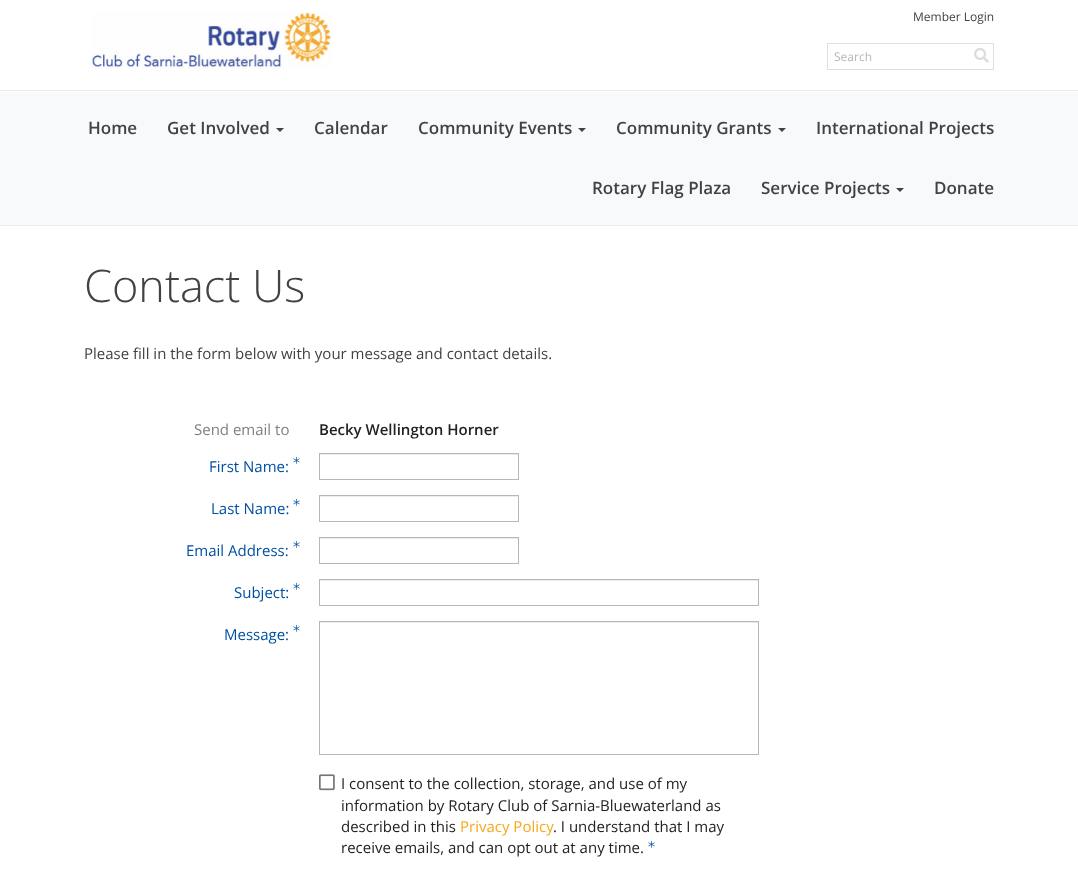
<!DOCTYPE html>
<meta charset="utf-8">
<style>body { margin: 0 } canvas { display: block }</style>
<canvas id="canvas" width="1078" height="895"></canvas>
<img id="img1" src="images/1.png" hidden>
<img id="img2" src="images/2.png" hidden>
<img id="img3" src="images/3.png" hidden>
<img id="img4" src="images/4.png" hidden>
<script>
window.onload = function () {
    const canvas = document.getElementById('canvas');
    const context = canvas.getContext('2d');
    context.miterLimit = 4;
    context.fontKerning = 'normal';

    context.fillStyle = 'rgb(255, 255, 255)';
    context.fillRect(0, 0, 1078, 895);
    context.drawImage(document.getElementById('img1'), 91, 12, 241, 57);
    context.strokeStyle = 'rgb(218, 224, 229)';
    context.strokeRect(827.5, 43.5, 166, 26);
    context.drawImage(document.getElementById('img2'), 974, 48, 15, 15);
    context.fillStyle = 'rgb(233, 236, 239)';
    context.fillRect(0, 90, 1078, 1);
    context.fillStyle = 'rgb(248, 249, 250)';
    context.fillRect(0, 92, 1078, 133);
    context.fillStyle = 'rgb(233, 236, 239)';
    context.fillRect(0, 225, 1078, 1);
    context.fillStyle = 'rgb(66, 66, 66)';
    context.beginPath();
    context.moveTo(276, 128);
    context.lineTo(284, 128);
    context.lineTo(280, 132);
    context.closePath();
    context.fill();
    context.beginPath();
    context.moveTo(578, 128);
    context.lineTo(586, 128);
    context.lineTo(582, 132);
    context.closePath();
    context.fill();
    context.beginPath();
    context.moveTo(778, 128);
    context.lineTo(786, 128);
    context.lineTo(782, 132);
    context.closePath();
    context.fill();
    context.beginPath();
    context.moveTo(896, 188);
    context.lineTo(904, 188);
    context.lineTo(900, 192);
    context.closePath();
    context.fill();
    context.drawImage(document.getElementById('img3'), 293, 456, 7, 8);
    context.fillStyle = 'rgb(236, 236, 236)';
    context.fillRect(320, 454, 198, 1);
    context.strokeStyle = 'rgb(183, 183, 183)';
    context.strokeRect(319.5, 453.5, 199, 26);
    context.drawImage(document.getElementById('img3'), 293, 498, 7, 8);
    context.fillRect(320, 496, 198, 1);
    context.strokeRect(319.5, 495.5, 199, 26);
    context.drawImage(document.getElementById('img3'), 293, 540, 7, 8);
    context.fillRect(320, 538, 198, 1);
    context.strokeRect(319.5, 537.5, 199, 26);
    context.drawImage(document.getElementById('img3'), 293, 582, 7, 8);
    context.fillRect(320, 580, 438, 1);
    context.strokeRect(319.5, 579.5, 439, 26);
    context.drawImage(document.getElementById('img3'), 293, 624, 7, 8);
    context.fillRect(320, 622, 438, 1);
    context.strokeRect(319.5, 621.5, 439, 133);
    context.drawImage(document.getElementById('img4'), 319, 774, 16, 17);
    context.drawImage(document.getElementById('img3'), 648, 840, 7, 8);
    context.font = '12px Open Sans';
    context.fillStyle = 'rgb(66, 66, 66)';
    context.fillText('Member Login', 913, 21);
    context.fillStyle = 'rgb(183, 183, 183)';
    context.fillText('Search', 834, 61);
    context.font = '600 17px Open Sans';
    context.fillStyle = 'rgb(66, 66, 66)';
    context.fillText('Home', 88, 134);
    context.fillText('Get Involved', 167, 134);
    context.fillText('Calendar', 314, 134);
    context.fillText('Community Events', 418, 134);
    context.fillText('Community Grants', 616, 134);
    context.fillText('International Projects', 816, 134);
    context.fillText('Rotary Flag Plaza', 592, 194);
    context.fillText('Service Projects', 761, 194);
    context.fillText('Donate', 934, 194);
    context.font = '300 45px Open Sans';
    context.fillText('Contact Us', 84, 302);
    context.font = '15px Open Sans';
    context.fillText('Please fill in the form below with your message and contact details.', 84, 359);
    context.fillStyle = 'rgb(128, 128, 128)';
    context.fillText('Send email to', 194, 435);
    context.font = '600 15px Open Sans';
    context.fillStyle = 'rgb(34, 34, 34)';
    context.fillText('Becky Wellington Horner', 319, 435);
    context.font = '15px Open Sans';
    context.fillStyle = 'rgb(0, 80, 162)';
    context.fillText('First Name:', 209, 472);
    context.fillText('Last Name:', 211, 514);
    context.fillText('Email Address:', 186, 556);
    context.fillText('Subject:', 234, 598);
    context.fillText('Message:', 224, 640);
    context.fillStyle = 'rgb(34, 34, 34)';
    context.fillText('I consent to the collection, storage, and use of my', 341, 789);
    context.fillText('information by Rotary Club of Sarnia-Bluewaterland as', 341, 811);
    context.fillText('described in this', 341, 832);
    context.fillStyle = 'rgb(247, 168, 27)';
    context.fillText('Privacy Policy', 460, 832);
    context.fillStyle = 'rgb(34, 34, 34)';
    context.fillText('. I understand that I may', 553, 832);
    context.fillText('receive emails, and can opt out at any time.', 341, 853);
};
</script>
